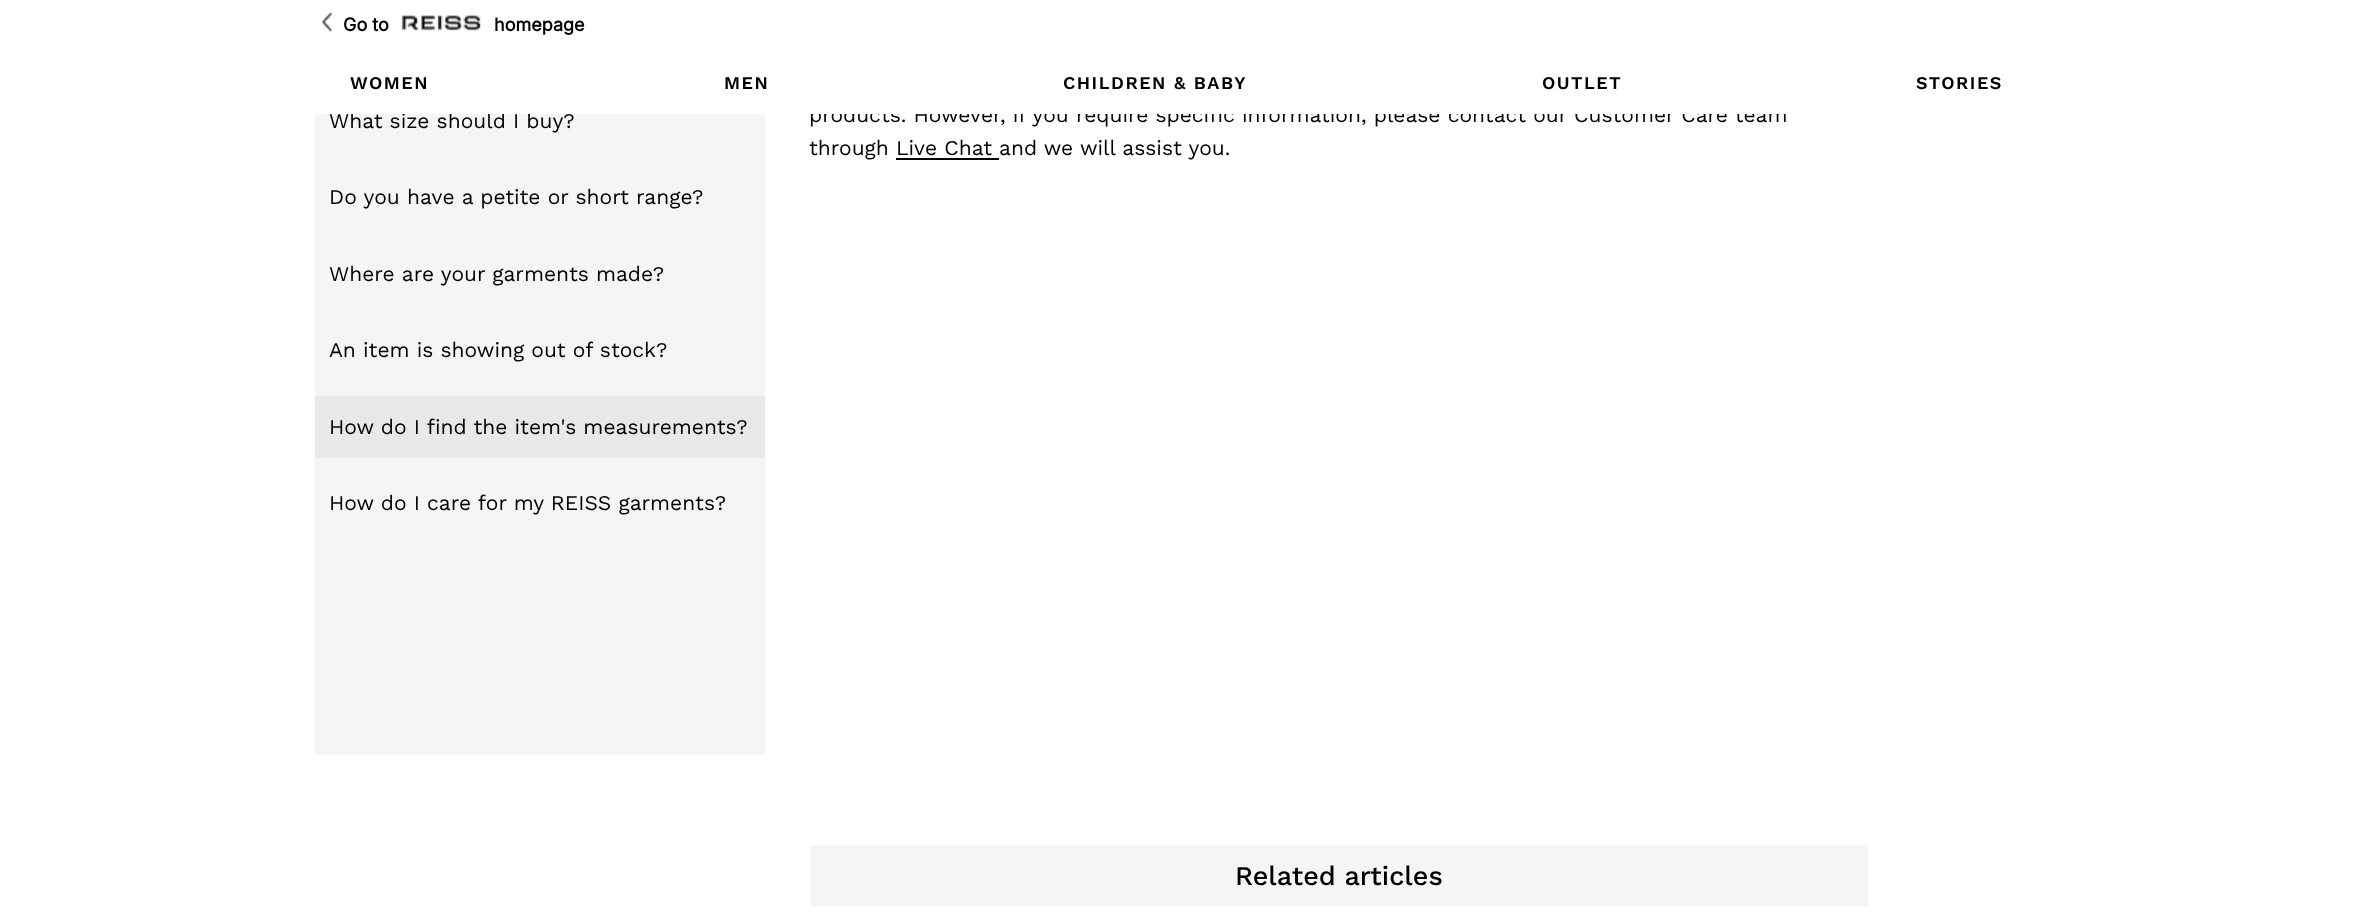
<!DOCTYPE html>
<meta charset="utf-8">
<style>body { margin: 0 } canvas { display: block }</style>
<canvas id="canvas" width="2353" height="917"></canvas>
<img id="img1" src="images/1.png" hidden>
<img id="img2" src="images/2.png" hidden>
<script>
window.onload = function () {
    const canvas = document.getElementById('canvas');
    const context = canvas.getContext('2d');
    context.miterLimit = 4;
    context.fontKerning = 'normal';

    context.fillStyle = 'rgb(255, 255, 255)';
    context.fillRect(0, 0, 2353, 917);
    context.drawImage(document.getElementById('img1'), 322, 12, 10, 20);
    context.drawImage(document.getElementById('img2'), 401, 15, 80, 16);
    context.fillStyle = 'rgb(245, 245, 245)';
    context.fillRect(315, 114, 450, 641);
    context.fillStyle = 'rgb(232, 232, 232)';
    context.fillRect(315, 396, 450, 62);
    context.fillStyle = 'rgb(0, 0, 0)';
    context.fillRect(896, 158, 103, 2);
    context.fillStyle = 'rgb(245, 245, 245)';
    context.fillRect(810, 845, 1058, 61);
    context.font = 'bold 18px Inter';
    context.fillStyle = 'rgb(0, 0, 0)';
    context.fillText('Go to', 343, 31);
    context.fillText('homepage', 494, 31);
    context.letterSpacing = '1.5px';
    context.font = '600 18px Work Sans';
    context.fillText('WOMEN', 350, 89);
    context.fillText('MEN', 724, 89);
    context.fillText('CHILDREN & BABY', 1063, 89);
    context.fillText('OUTLET', 1542, 89);
    context.fillText('STORIES', 1916, 89);
    context.letterSpacing = '0px';
    context.font = '21px Work Sans';
    context.fillText('What size should I buy?', 329, 128);
    context.fillText('Do you have a petite or short range?', 329, 204);
    context.fillText('Where are your garments made?', 329, 281);
    context.fillText('An item is showing out of stock?', 329, 357);
    context.fillText('How do I find the item\'s measurements?', 329, 434);
    context.fillText('How do I care for my REISS garments?', 329, 510);
    context.fillText('products. However, if you require specific information, please contact our Customer Care team', 809, 122);
    context.fillStyle = 'rgb(255, 255, 255)';
    context.fillRect(351, 106, 1435, 8);
    context.fillStyle = 'rgb(0, 0, 0)';
    context.fillText('through Live Chat and we will assist you.', 809, 155);
    context.font = '500 27px Work Sans';
    context.fillText('Related articles', 1235, 885);
};
</script>
